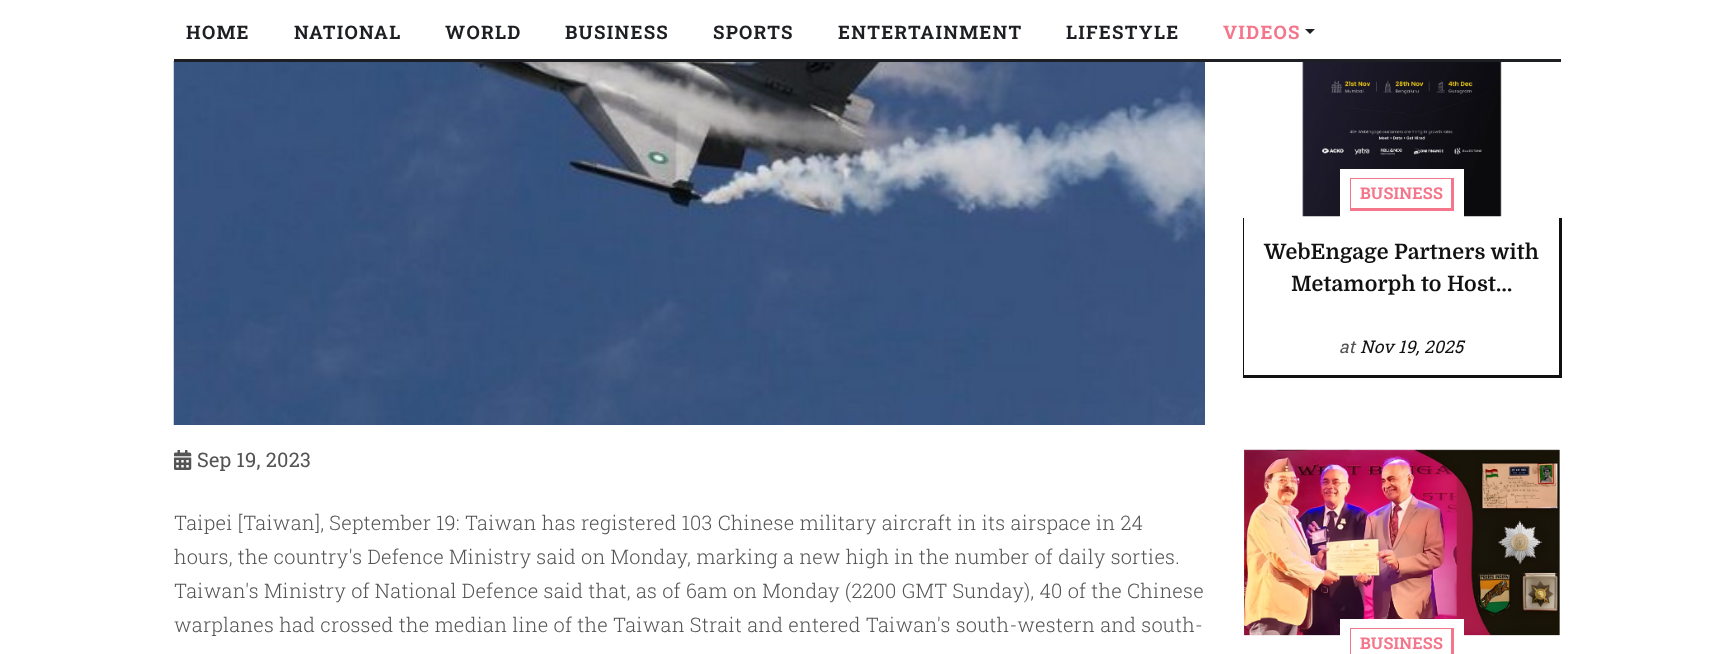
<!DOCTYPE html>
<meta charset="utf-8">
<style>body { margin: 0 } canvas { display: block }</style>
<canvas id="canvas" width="1735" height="654"></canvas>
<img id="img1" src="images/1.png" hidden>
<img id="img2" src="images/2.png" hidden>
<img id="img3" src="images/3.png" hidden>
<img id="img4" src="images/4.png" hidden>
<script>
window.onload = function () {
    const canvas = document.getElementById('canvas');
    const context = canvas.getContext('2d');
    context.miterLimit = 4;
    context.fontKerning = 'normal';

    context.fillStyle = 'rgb(255, 255, 255)';
    context.fillRect(0, 0, 1735, 654);
    context.drawImage(document.getElementById('img1'), 173, 61, 1032, 364);
    context.fillStyle = 'rgb(29, 31, 34)';
    context.fillRect(174, 59, 1387, 3);
    context.beginPath();
    context.moveTo(1305, 29);
    context.lineTo(1315, 29);
    context.lineTo(1310, 34);
    context.closePath();
    context.fill();
    context.drawImage(document.getElementById('img2'), 174, 450, 18, 20);
    context.drawImage(document.getElementById('img3'), 1302, 62, 200, 155);
    context.fillStyle = 'rgb(255, 255, 255)';
    context.fillRect(1340, 169, 124, 48);
    context.fillStyle = 'rgb(244, 118, 139)';
    context.fillRect(1350, 178, 104, 1);
    context.fillRect(1451, 178, 3, 32);
    context.fillRect(1350, 208, 104, 3);
    context.fillRect(1350, 178, 1, 32);
    context.fillStyle = 'rgb(17, 17, 17)';
    context.fillRect(1559, 218, 3, 160);
    context.fillRect(1243, 375, 318, 3);
    context.fillRect(1243, 218, 1, 160);
    context.drawImage(document.getElementById('img4'), 1244, 449, 316, 187);
    context.fillStyle = 'rgb(255, 255, 255)';
    context.fillRect(1340, 619, 124, 17);
    context.fillStyle = 'rgb(244, 118, 139)';
    context.fillRect(1350, 628, 104, 1);
    context.fillRect(1451, 628, 3, 26);
    context.fillRect(1350, 628, 1, 26);
    context.letterSpacing = '1.25px';
    context.font = 'bold 18.75px Roboto Slab';
    context.fillStyle = 'rgb(29, 31, 34)';
    context.fillText('HOME', 186, 39);
    context.fillText('NATIONAL', 294, 39);
    context.fillText('WORLD', 445, 39);
    context.fillText('BUSINESS', 565, 39);
    context.fillText('SPORTS', 713, 39);
    context.fillText('ENTERTAINMENT', 838, 39);
    context.fillText('LIFESTYLE', 1066, 39);
    context.fillStyle = 'rgb(244, 118, 139)';
    context.fillText('VIDEOS', 1223, 39);
    context.letterSpacing = '0.2px';
    context.font = '20px Roboto Slab';
    context.fillStyle = 'rgb(84, 84, 84)';
    context.fillText('Sep 19, 2023', 197, 467);
    context.font = '300 20px Roboto Slab';
    context.fillText('Taipei [Taiwan], September 19: Taiwan has registered 103 Chinese military aircraft in its airspace in 24', 174, 530);
    context.fillText('hours, the country\'s Defence Ministry said on Monday, marking a new high in the number of daily sorties.', 174, 564);
    context.fillText('Taiwan\'s Ministry of National Defence said that, as of 6am on Monday (2200 GMT Sunday), 40 of the Chinese', 174, 598);
    context.fillText('warplanes had crossed the median line of the Taiwan Strait and entered Taiwan\'s south-western and south-', 174, 632);
    context.font = 'bold 16.25px Roboto Slab';
    context.fillStyle = 'rgb(244, 118, 139)';
    context.fillText('BUSINESS', 1360, 199);
    context.font = 'bold 21.25px Domine';
    context.fillStyle = 'rgb(17, 17, 17)';
    context.fillText('WebEngage Partners with', 1264, 259);
    context.fillText('Metamorph to Host...', 1291, 291);
    context.font = 'italic 17.5px Roboto Slab';
    context.fillStyle = 'rgb(84, 84, 84)';
    context.fillText('at', 1339, 353);
    context.fillStyle = 'rgb(17, 17, 17)';
    context.fillText('Nov 19, 2025', 1360, 353);
    context.font = 'bold 16.25px Roboto Slab';
    context.fillStyle = 'rgb(244, 118, 139)';
    context.fillText('BUSINESS', 1360, 649);
};
</script>
